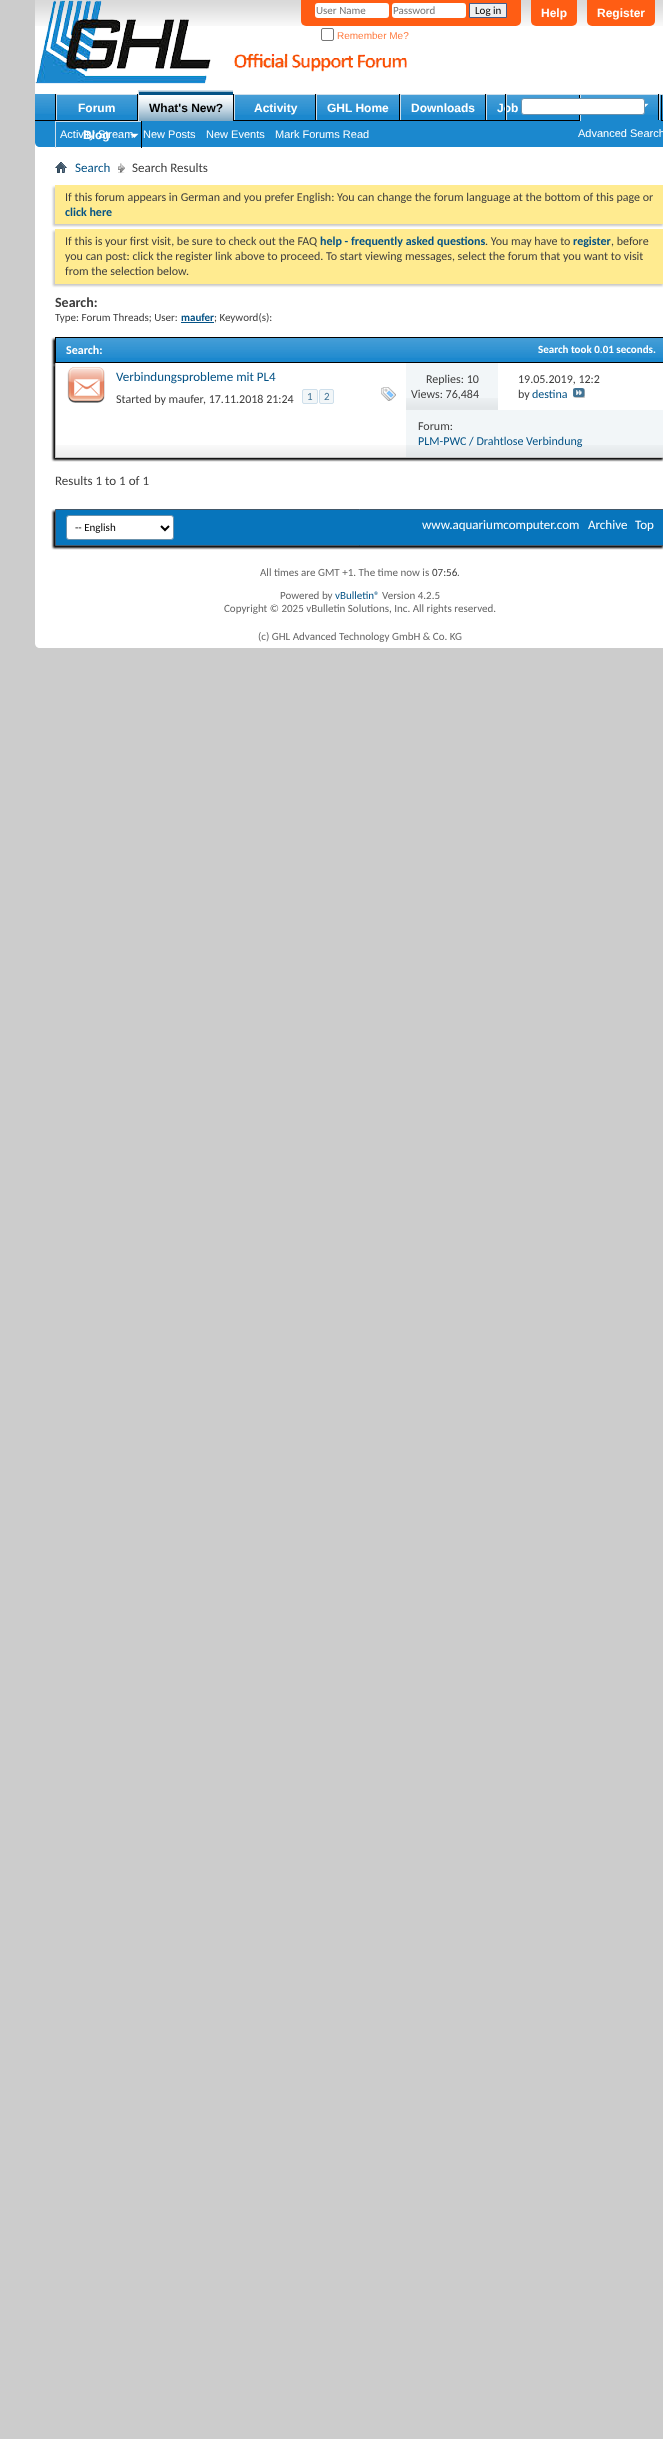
<!DOCTYPE html>
<meta charset="utf-8">
<style>body { margin: 0 } canvas { display: block }</style>
<canvas id="canvas" width="663" height="2439"></canvas>
<img id="img1" src="images/1.png" hidden>
<img id="img2" src="images/2.png" hidden>
<img id="img3" src="images/3.png" hidden>
<img id="img4" src="images/4.png" hidden>
<img id="img5" src="images/5.png" hidden>
<img id="img6" src="images/6.png" hidden>
<img id="img7" src="images/7.png" hidden>
<img id="img8" src="images/8.png" hidden>
<img id="img9" src="images/9.png" hidden>
<img id="img10" src="images/11.png" hidden>
<img id="img11" src="images/12.png" hidden>
<img id="img12" src="images/13.png" hidden>
<img id="img13" src="images/14.png" hidden>
<img id="img14" src="images/15.png" hidden>
<img id="img15" src="images/16.png" hidden>
<img id="img16" src="images/17.png" hidden>
<img id="img17" src="images/18.png" hidden>
<img id="img18" src="images/19.png" hidden>
<img id="img19" src="images/10.png" hidden>
<script>
window.onload = function () {
    const canvas = document.getElementById('canvas');
    const context = canvas.getContext('2d');
    context.miterLimit = 4;
    context.fontKerning = 'normal';

    context.fillStyle = 'rgb(204, 204, 204)';
    context.fillRect(0, 0, 663, 2439);
    context.fillStyle = 'rgb(255, 255, 255)';
    context.beginPath();
    context.moveTo(35, 0);
    context.lineTo(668, 0);
    context.lineTo(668, 643);
    context.bezierCurveTo(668, 646, 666, 648, 663, 648);
    context.lineTo(40, 648);
    context.bezierCurveTo(37, 648, 35, 646, 35, 643);
    context.closePath();
    context.fill();
    context.drawImage(document.getElementById('img1'), 35, 0, 628, 26);
    context.drawImage(document.getElementById('img2'), 35, 0, 372, 84);
    context.fillStyle = 'rgb(255, 93, 20)';
    context.beginPath();
    context.roundRect(301, 0, 220, 26, [0, 0, 5, 5]);
    context.fill();
    context.fillStyle = 'rgb(255, 255, 255)';
    context.beginPath();
    context.roundRect(315, 3, 74, 15, 3);
    context.fill();
    context.beginPath();
    context.roundRect(392, 3, 74, 15, 3);
    context.fill();
    context.fillStyle = 'rgb(239, 239, 239)';
    context.beginPath();
    context.rect(469.5, 3.5, 37, 14);
    context.fill();
    context.strokeStyle = 'rgb(65, 93, 141)';
    context.stroke();
    context.beginPath();
    context.roundRect(321.5, 28.5, 12, 12, 1.5);
    context.strokeStyle = 'rgb(118, 118, 118)';
    context.stroke();
    context.fillStyle = 'rgb(255, 93, 20)';
    context.beginPath();
    context.roundRect(531, 0, 46, 26, [0, 0, 5, 5]);
    context.fill();
    context.beginPath();
    context.roundRect(587, 0, 68, 26, [0, 0, 5, 5]);
    context.fill();
    context.fillStyle = 'rgb(27, 136, 206)';
    context.beginPath();
    context.moveTo(35, 94);
    context.lineTo(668, 94);
    context.lineTo(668, 142);
    context.bezierCurveTo(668, 145, 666, 147, 663, 147);
    context.lineTo(40, 147);
    context.bezierCurveTo(37, 147, 35, 145, 35, 142);
    context.closePath();
    context.fill();
    context.drawImage(document.getElementById('img3'), 35, 94, 628, 20);
    context.fillStyle = 'rgb(0, 0, 0)';
    context.fillRect(137, 94, 1, 27);
    context.fillRect(55, 94, 1, 27);
    context.fillStyle = 'rgb(27, 136, 206)';
    context.fillRect(57, 95, 80, 19);
    context.drawImage(document.getElementById('img4'), 57, 95, 80, 20);
    context.fillStyle = 'rgb(206, 223, 235)';
    context.fillRect(56, 94, 81, 1);
    context.fillRect(56, 94, 1, 27);
    context.fillStyle = 'rgb(0, 0, 0)';
    context.fillRect(233, 94, 1, 26);
    context.fillRect(315, 94, 1, 27);
    context.fillStyle = 'rgb(206, 223, 235)';
    context.fillRect(234, 94, 81, 1);
    context.fillRect(234, 94, 1, 27);
    context.fillStyle = 'rgb(0, 0, 0)';
    context.fillRect(399, 94, 1, 27);
    context.fillStyle = 'rgb(206, 223, 235)';
    context.fillRect(316, 94, 83, 1);
    context.fillRect(316, 94, 1, 27);
    context.fillStyle = 'rgb(0, 0, 0)';
    context.fillRect(485, 94, 1, 27);
    context.fillStyle = 'rgb(206, 223, 235)';
    context.fillRect(400, 94, 85, 1);
    context.fillRect(400, 94, 1, 27);
    context.fillStyle = 'rgb(0, 0, 0)';
    context.fillRect(579, 94, 1, 27);
    context.fillStyle = 'rgb(206, 223, 235)';
    context.fillRect(486, 94, 19, 1);
    context.fillRect(486, 94, 1, 27);
    context.fillStyle = 'rgb(0, 0, 0)';
    context.fillRect(35, 120, 628, 1);
    context.fillStyle = 'rgb(5, 83, 134)';
    context.fillRect(139, 91, 94, 30);
    context.drawImage(document.getElementById('img5'), 139, 91, 94, 30);
    context.fillStyle = 'rgb(206, 223, 235)';
    context.fillRect(138, 90, 95, 1);
    context.fillRect(138, 90, 1, 31);
    context.fillStyle = 'rgb(27, 136, 206)';
    context.fillRect(235, 95, 80, 19);
    context.drawImage(document.getElementById('img4'), 235, 95, 80, 20);
    context.fillRect(317, 95, 82, 19);
    context.drawImage(document.getElementById('img6'), 317, 95, 82, 20);
    context.fillRect(401, 95, 84, 19);
    context.drawImage(document.getElementById('img7'), 401, 95, 84, 20);
    context.fillRect(487, 95, 92, 19);
    context.drawImage(document.getElementById('img8'), 487, 95, 92, 20);
    context.fillStyle = 'rgb(0, 0, 0)';
    context.fillRect(661, 94, 1, 27);
    context.fillStyle = 'rgb(27, 136, 206)';
    context.fillRect(581, 95, 80, 26);
    context.drawImage(document.getElementById('img4'), 581, 95, 80, 20);
    context.fillStyle = 'rgb(206, 223, 235)';
    context.fillRect(580, 94, 1, 27);
    context.drawImage(document.getElementById('img9'), 645, 103, 4, 5);
    context.fillStyle = 'rgb(0, 0, 0)';
    context.fillRect(141, 121, 1, 27);
    context.fillStyle = 'rgb(206, 223, 235)';
    context.fillRect(55, 121, 86, 1);
    context.fillRect(55, 121, 1, 27);
    context.fillRect(506, 94, 152, 1);
    context.fillStyle = 'rgb(255, 255, 255)';
    context.beginPath();
    context.roundRect(521.5, 98.5, 123, 16, 2.5);
    context.fill();
    context.strokeStyle = 'rgb(107, 145, 171)';
    context.stroke();
    context.fillStyle = 'rgb(0, 0, 0)';
    context.fillRect(658, 94, 1, 26);
    context.fillStyle = 'rgb(206, 223, 235)';
    context.fillRect(659, 94, 4, 1);
    context.fillRect(659, 94, 1, 26);
    context.drawImage(document.getElementById('img10'), 55, 162, 12, 11);
    context.drawImage(document.getElementById('img11'), 118, 163, 7, 10);
    context.fillStyle = 'rgb(200, 200, 200)';
    context.filter = 'blur(1px)';
    context.beginPath();
    context.rect(53, 187, 610, 39);
    context.fill();
    context.filter = 'none';
    context.fillStyle = 'rgb(255, 235, 144)';
    context.fillRect(55, 185, 608, 39);
    context.fillStyle = 'rgb(200, 200, 200)';
    context.filter = 'blur(1px)';
    context.beginPath();
    context.rect(53, 231, 610, 55);
    context.fill();
    context.filter = 'none';
    context.fillStyle = 'rgb(255, 235, 144)';
    context.fillRect(55, 229, 608, 55);
    context.fillStyle = 'rgb(5, 83, 134)';
    context.fillRect(181, 322, 33, 1);
    context.fillStyle = 'rgb(0, 0, 0)';
    context.filter = 'blur(1px)';
    context.beginPath();
    context.rect(53, 339, 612, 26);
    context.fill();
    context.filter = 'none';
    context.fillStyle = 'rgb(27, 136, 206)';
    context.fillRect(56, 338, 607, 24);
    context.drawImage(document.getElementById('img12'), 56, 338, 607, 20);
    context.strokeStyle = 'rgb(0, 0, 0)';
    context.strokeRect(55.5, 337.5, 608, 25);
    context.fillStyle = 'rgb(0, 0, 0)';
    context.filter = 'blur(1px)';
    context.beginPath();
    context.rect(53, 365, 610, 95);
    context.fill();
    context.filter = 'none';
    context.fillStyle = 'rgb(255, 255, 255)';
    context.fillRect(56, 363, 607, 94);
    context.drawImage(document.getElementById('img13'), 56, 445, 350, 12);
    context.fillStyle = 'rgb(196, 196, 196)';
    context.fillRect(55, 457, 608, 1);
    context.fillRect(55, 363, 1, 95);
    context.drawImage(document.getElementById('img14'), 67, 367, 38, 36);
    context.fillStyle = 'rgb(242, 246, 248)';
    context.beginPath();
    context.roundRect(302.5, 389.5, 15, 14, 1.5);
    context.fill();
    context.strokeStyle = 'rgb(206, 223, 235)';
    context.stroke();
    context.beginPath();
    context.roundRect(319.5, 389.5, 14, 14, 1.5);
    context.fill();
    context.stroke();
    context.drawImage(document.getElementById('img15'), 381, 387, 15, 14);
    context.fillRect(406, 363, 92, 47);
    context.drawImage(document.getElementById('img16'), 406, 398, 92, 12);
    context.drawImage(document.getElementById('img17'), 573, 388, 12, 10);
    context.fillRect(406, 410, 257, 47);
    context.drawImage(document.getElementById('img18'), 406, 445, 257, 12);
    context.fillStyle = 'rgb(0, 0, 0)';
    context.filter = 'blur(1px)';
    context.beginPath();
    context.rect(53, 511, 610, 37);
    context.fill();
    context.filter = 'none';
    context.fillStyle = 'rgb(7, 117, 188)';
    context.beginPath();
    context.rect(55.5, 509.5, 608, 36);
    context.fill();
    context.strokeStyle = 'rgb(66, 87, 105)';
    context.stroke();
    context.fillStyle = 'rgb(255, 255, 255)';
    context.beginPath();
    context.roundRect(66.5, 515.5, 107, 24, 2.5);
    context.fill();
    context.strokeStyle = 'rgb(107, 145, 171)';
    context.stroke();
    context.beginPath();
    context.moveTo(161, 526);
    context.lineTo(165, 530);
    context.lineTo(169, 526);
    context.strokeStyle = 'rgb(0, 0, 0)';
    context.lineWidth = 2;
    context.stroke();
    context.font = '11px Carlito';
    context.fillStyle = 'rgb(119, 119, 119)';
    context.fillText('User Name', 316, 14);
    context.fillText('Password', 393, 14);
    context.fillStyle = 'rgb(0, 0, 0)';
    context.fillText('Log in', 475, 14);
    context.font = '10px Liberation Sans';
    context.fillStyle = 'rgb(255, 124, 65)';
    context.fillText('Remember Me?', 337, 39);
    context.font = 'bold 12px Liberation Sans';
    context.fillStyle = 'rgb(255, 255, 255)';
    context.fillText('Help', 541, 17);
    context.fillText('Register', 597, 17);
    context.fillText('Forum', 78, 112);
    context.fillStyle = 'rgb(0, 0, 0)';
    context.fillText('What\'s New?', 149, 112);
    context.fillStyle = 'rgb(255, 255, 255)';
    context.fillText('Activity', 254, 112);
    context.fillText('GHL Home', 327, 112);
    context.fillText('Downloads', 411, 112);
    context.fillText('Job', 497, 112);
    context.font = '11px Liberation Sans';
    context.fillText('Activity Stream', 60, 138);
    context.fillText('New Posts', 143, 138);
    context.fillText('New Events', 206, 138);
    context.fillText('Mark Forums Read', 275, 138);
    context.drawImage(document.getElementById('img19'), 130, 133, 9, 5);
    context.font = 'bold 12px Liberation Sans';
    context.fillText('Blog', 83, 139);
    context.fillStyle = 'rgb(0, 0, 0)';
    context.fillRect(505, 94, 1, 26);
    context.fillStyle = 'rgb(206, 223, 235)';
    context.fillRect(506, 94, 1, 26);
    context.font = '11px Liberation Sans';
    context.fillStyle = 'rgb(255, 255, 255)';
    context.fillText('Advanced Search', 578, 137);
    context.font = '13px Carlito';
    context.fillStyle = 'rgb(5, 83, 134)';
    context.fillText('Search', 75, 172);
    context.fillStyle = 'rgb(62, 62, 62)';
    context.fillText('Search Results', 132, 172);
    context.font = '12px Carlito';
    context.fillText('If this forum appears in German and you prefer English: You can change the forum language at the bottom of this page or', 65, 201);
    context.font = 'bold 12px Carlito';
    context.fillStyle = 'rgb(5, 83, 134)';
    context.fillText('click here', 65, 216);
    context.font = '12px Carlito';
    context.fillStyle = 'rgb(62, 62, 62)';
    context.fillText('If this is your first visit, be sure to check out the FAQ', 65, 245);
    context.font = 'bold 12px Carlito';
    context.fillStyle = 'rgb(5, 83, 134)';
    context.fillText('help - frequently asked questions', 320, 245);
    context.font = '12px Carlito';
    context.fillStyle = 'rgb(62, 62, 62)';
    context.fillText('. You may have to', 485, 245);
    context.font = 'bold 12px Carlito';
    context.fillStyle = 'rgb(5, 83, 134)';
    context.fillText('register', 573, 245);
    context.font = '12px Carlito';
    context.fillStyle = 'rgb(62, 62, 62)';
    context.fillText(', before', 611, 245);
    context.fillText('you can post: click the register link above to proceed. To start viewing messages, select the forum that you want to visit', 65, 260);
    context.fillText('from the selection below.', 65, 275);
    context.font = 'bold 14px Carlito';
    context.fillText('Search:', 55, 307);
    context.font = '11px Carlito';
    context.fillText('Type: Forum Threads; User:', 55, 321);
    context.font = 'bold 11px Carlito';
    context.fillStyle = 'rgb(5, 83, 134)';
    context.fillText('maufer', 181, 321);
    context.font = '11px Carlito';
    context.fillStyle = 'rgb(62, 62, 62)';
    context.fillText('; Keyword(s):', 214, 321);
    context.font = 'bold 12px Carlito';
    context.fillStyle = 'rgb(255, 255, 255)';
    context.fillText('Search:', 66, 354);
    context.font = 'bold 11px Carlito';
    context.fillText('Search took 0.01 seconds.', 538, 353);
    context.font = '13px Carlito';
    context.fillStyle = 'rgb(5, 83, 134)';
    context.fillText('Verbindungsprobleme mit PL4', 116, 381);
    context.font = '12px Carlito';
    context.fillStyle = 'rgb(62, 62, 62)';
    context.fillText('Started by maufer', 116, 403);
    context.fillText(', 17.11.2018 21:24', 203, 403);
    context.font = '11px Carlito';
    context.fillStyle = 'rgb(65, 115, 148)';
    context.fillText('1', 307, 400);
    context.fillText('2', 324, 400);
    context.font = '12px Carlito';
    context.fillStyle = 'rgb(62, 62, 62)';
    context.fillText('Replies: 10', 426, 383);
    context.fillText('Views: 76,484', 411, 398);
    context.fillText('19.05.2019, 12:2', 518, 383);
    context.fillText('by', 518, 398);
    context.fillStyle = 'rgb(5, 83, 134)';
    context.fillText('destina', 532, 398);
    context.fillStyle = 'rgb(62, 62, 62)';
    context.fillText('Forum:', 418, 430);
    context.fillStyle = 'rgb(5, 83, 134)';
    context.fillText('PLM-PWC / Drahtlose Verbindung', 418, 445);
    context.font = '13px Carlito';
    context.fillStyle = 'rgb(62, 62, 62)';
    context.fillText('Results 1 to 1 of 1', 55, 485);
    context.font = '11px Carlito';
    context.fillStyle = 'rgb(0, 0, 0)';
    context.fillText('-- English', 75, 531);
    context.font = '13px Carlito';
    context.fillStyle = 'rgb(255, 255, 255)';
    context.fillText('www.aquariumcomputer.com', 422, 529);
    context.fillText('Archive', 588, 529);
    context.fillText('Top', 635, 529);
    context.font = '11px Carlito';
    context.fillStyle = 'rgb(102, 102, 102)';
    context.fillText('All times are GMT +1. The time now is', 260, 576);
    context.fillStyle = 'rgb(62, 62, 62)';
    context.fillText('07:56', 432, 576);
    context.fillStyle = 'rgb(102, 102, 102)';
    context.fillText('.', 457, 576);
    context.fillText('Powered by', 280, 599);
    context.fillStyle = 'rgb(5, 83, 134)';
    context.fillText('vBulletin®', 335, 599);
    context.fillStyle = 'rgb(102, 102, 102)';
    context.fillText('Version 4.2.5', 382, 599);
    context.fillText('Copyright © 2025 vBulletin Solutions, Inc. All rights reserved.', 224, 612);
    context.fillText('(c) GHL Advanced Technology GmbH & Co. KG', 258, 640);
};
</script>
